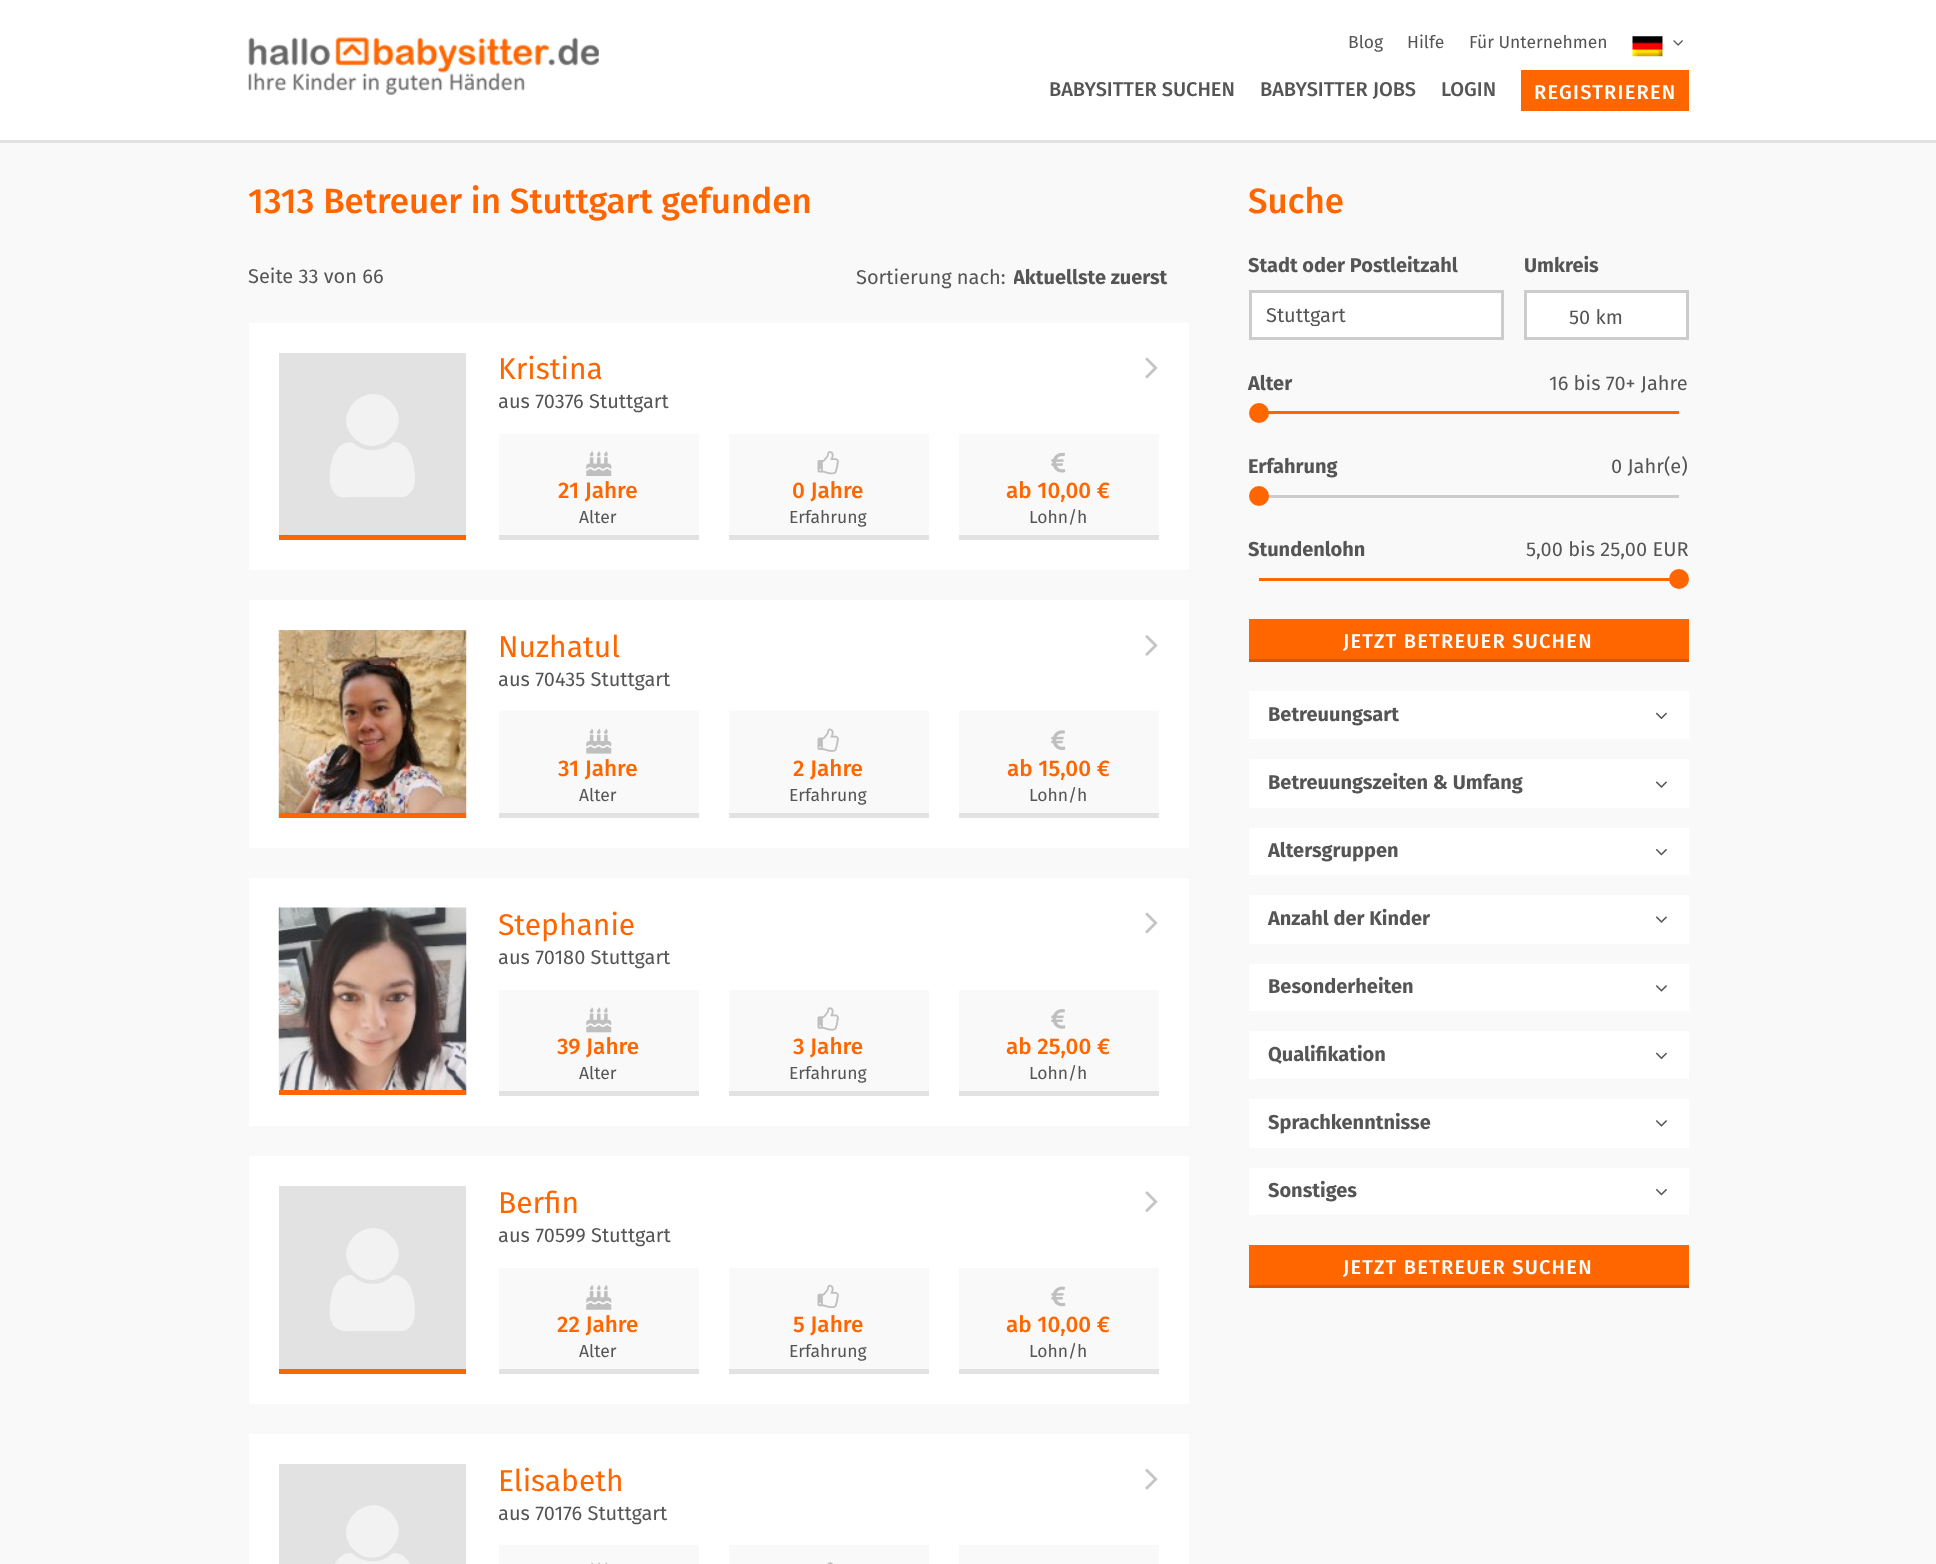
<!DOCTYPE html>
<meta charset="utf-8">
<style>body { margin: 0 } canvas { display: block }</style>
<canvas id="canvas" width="1936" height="1564"></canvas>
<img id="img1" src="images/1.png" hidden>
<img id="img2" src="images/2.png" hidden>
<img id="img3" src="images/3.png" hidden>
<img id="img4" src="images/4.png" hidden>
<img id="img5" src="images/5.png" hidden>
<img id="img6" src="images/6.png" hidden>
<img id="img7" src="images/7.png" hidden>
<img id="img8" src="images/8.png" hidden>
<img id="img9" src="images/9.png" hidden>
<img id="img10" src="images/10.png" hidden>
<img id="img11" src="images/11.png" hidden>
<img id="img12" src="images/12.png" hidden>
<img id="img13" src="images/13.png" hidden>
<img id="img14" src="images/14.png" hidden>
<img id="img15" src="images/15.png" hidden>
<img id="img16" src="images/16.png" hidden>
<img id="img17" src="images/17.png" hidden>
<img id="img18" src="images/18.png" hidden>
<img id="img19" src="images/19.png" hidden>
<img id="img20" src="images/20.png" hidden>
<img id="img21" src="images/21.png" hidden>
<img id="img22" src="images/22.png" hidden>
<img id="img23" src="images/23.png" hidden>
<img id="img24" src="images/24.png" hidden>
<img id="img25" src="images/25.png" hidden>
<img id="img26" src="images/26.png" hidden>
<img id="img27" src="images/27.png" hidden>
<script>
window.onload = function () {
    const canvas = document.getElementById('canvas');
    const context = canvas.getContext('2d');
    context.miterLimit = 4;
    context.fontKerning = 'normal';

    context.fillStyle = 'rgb(249, 249, 249)';
    context.fillRect(0, 0, 1936, 1564);
    context.fillStyle = 'rgb(255, 255, 255)';
    context.fillRect(0, 0, 1936, 140);
    context.fillStyle = 'rgb(226, 226, 226)';
    context.fillRect(0, 140, 1936, 3);
    context.drawImage(document.getElementById('img1'), 248, 37, 351, 58);
    context.drawImage(document.getElementById('img2'), 1632, 36, 31, 21);
    context.drawImage(document.getElementById('img3'), 1673, 40, 10, 6);
    context.fillStyle = 'rgb(255, 102, 0)';
    context.fillRect(1521, 70, 168, 41);
    context.fillStyle = 'rgb(255, 255, 255)';
    context.fillRect(249, 323, 940, 247);
    context.fillStyle = 'rgb(226, 226, 226)';
    context.fillRect(279, 353, 187, 182);
    context.fillStyle = 'rgb(242, 242, 242)';
    context.beginPath();
    context.moveTo(415, 480);
    context.bezierCurveTo(415, 487, 411, 495, 404, 497);
    context.lineTo(353, 497);
    context.bezierCurveTo(350, 497, 344, 498, 340, 497);
    context.bezierCurveTo(335, 495, 332, 491, 331, 486);
    context.bezierCurveTo(329, 482, 330, 477, 330, 473);
    context.bezierCurveTo(331, 460, 335, 442, 352, 442);
    context.bezierCurveTo(363, 453, 382, 453, 393, 442);
    context.bezierCurveTo(412, 442, 415, 465, 415, 480);
    context.closePath();
    context.moveTo(391, 402);
    context.bezierCurveTo(415, 426, 378, 462, 354, 438);
    context.bezierCurveTo(330, 414, 367, 378, 391, 402);
    context.closePath();
    context.fill();
    context.fillStyle = 'rgb(255, 102, 0)';
    context.fillRect(279, 535, 187, 5);
    context.drawImage(document.getElementById('img4'), 1145, 357, 13, 22);
    context.fillStyle = 'rgb(249, 249, 249)';
    context.fillRect(499, 434, 200, 101);
    context.fillStyle = 'rgb(226, 226, 226)';
    context.fillRect(499, 535, 200, 5);
    context.drawImage(document.getElementById('img5'), 586, 451, 26, 25);
    context.fillStyle = 'rgb(249, 249, 249)';
    context.fillRect(729, 434, 200, 101);
    context.fillStyle = 'rgb(226, 226, 226)';
    context.fillRect(729, 535, 200, 5);
    context.drawImage(document.getElementById('img6'), 817, 451, 22, 24);
    context.fillStyle = 'rgb(249, 249, 249)';
    context.fillRect(959, 434, 200, 101);
    context.fillStyle = 'rgb(226, 226, 226)';
    context.fillRect(959, 535, 200, 5);
    context.drawImage(document.getElementById('img7'), 1051, 452, 15, 21);
    context.fillStyle = 'rgb(255, 255, 255)';
    context.fillRect(249, 600, 940, 248);
    context.drawImage(document.getElementById('img8'), 278, 630, 189, 188);
    context.fillStyle = 'rgb(255, 102, 0)';
    context.fillRect(279, 813, 187, 5);
    context.drawImage(document.getElementById('img9'), 1145, 635, 13, 21);
    context.fillStyle = 'rgb(249, 249, 249)';
    context.fillRect(499, 711, 200, 102);
    context.fillStyle = 'rgb(226, 226, 226)';
    context.fillRect(499, 813, 200, 5);
    context.drawImage(document.getElementById('img10'), 586, 728, 26, 26);
    context.fillStyle = 'rgb(249, 249, 249)';
    context.fillRect(729, 711, 200, 102);
    context.fillStyle = 'rgb(226, 226, 226)';
    context.fillRect(729, 813, 200, 5);
    context.drawImage(document.getElementById('img11'), 817, 728, 22, 24);
    context.fillStyle = 'rgb(249, 249, 249)';
    context.fillRect(959, 711, 200, 102);
    context.fillStyle = 'rgb(226, 226, 226)';
    context.fillRect(959, 813, 200, 5);
    context.drawImage(document.getElementById('img12'), 1051, 730, 15, 20);
    context.fillStyle = 'rgb(255, 255, 255)';
    context.fillRect(249, 878, 940, 248);
    context.drawImage(document.getElementById('img13'), 278, 907, 189, 188);
    context.fillStyle = 'rgb(255, 102, 0)';
    context.fillRect(279, 1090, 187, 5);
    context.drawImage(document.getElementById('img4'), 1145, 912, 13, 22);
    context.fillStyle = 'rgb(249, 249, 249)';
    context.fillRect(499, 990, 200, 101);
    context.fillStyle = 'rgb(226, 226, 226)';
    context.fillRect(499, 1091, 200, 5);
    context.drawImage(document.getElementById('img14'), 586, 1007, 26, 26);
    context.fillStyle = 'rgb(249, 249, 249)';
    context.fillRect(729, 990, 200, 101);
    context.fillStyle = 'rgb(226, 226, 226)';
    context.fillRect(729, 1091, 200, 5);
    context.drawImage(document.getElementById('img15'), 817, 1007, 22, 24);
    context.fillStyle = 'rgb(249, 249, 249)';
    context.fillRect(959, 990, 200, 101);
    context.fillStyle = 'rgb(226, 226, 226)';
    context.fillRect(959, 1091, 200, 5);
    context.drawImage(document.getElementById('img16'), 1051, 1009, 15, 20);
    context.fillStyle = 'rgb(255, 255, 255)';
    context.fillRect(249, 1156, 940, 248);
    context.fillStyle = 'rgb(226, 226, 226)';
    context.fillRect(279, 1186, 187, 183);
    context.fillStyle = 'rgb(242, 242, 242)';
    context.beginPath();
    context.moveTo(415, 1313);
    context.bezierCurveTo(415, 1320, 411, 1329, 404, 1331);
    context.lineTo(353, 1331);
    context.bezierCurveTo(350, 1331, 344, 1332, 340, 1330);
    context.bezierCurveTo(335, 1329, 332, 1324, 331, 1320);
    context.bezierCurveTo(329, 1316, 330, 1311, 330, 1306);
    context.bezierCurveTo(331, 1293, 335, 1275, 352, 1275);
    context.bezierCurveTo(363, 1287, 382, 1287, 393, 1275);
    context.bezierCurveTo(412, 1275, 415, 1299, 415, 1313);
    context.closePath();
    context.moveTo(391, 1236);
    context.bezierCurveTo(415, 1260, 378, 1296, 354, 1272);
    context.bezierCurveTo(330, 1248, 367, 1212, 391, 1236);
    context.closePath();
    context.fill();
    context.fillStyle = 'rgb(255, 102, 0)';
    context.fillRect(279, 1369, 187, 5);
    context.drawImage(document.getElementById('img17'), 1145, 1191, 13, 21);
    context.fillStyle = 'rgb(249, 249, 249)';
    context.fillRect(499, 1268, 200, 101);
    context.fillStyle = 'rgb(226, 226, 226)';
    context.fillRect(499, 1369, 200, 5);
    context.drawImage(document.getElementById('img18'), 586, 1285, 26, 25);
    context.fillStyle = 'rgb(249, 249, 249)';
    context.fillRect(729, 1268, 200, 101);
    context.fillStyle = 'rgb(226, 226, 226)';
    context.fillRect(729, 1369, 200, 5);
    context.drawImage(document.getElementById('img19'), 817, 1284, 22, 24);
    context.fillStyle = 'rgb(249, 249, 249)';
    context.fillRect(959, 1268, 200, 101);
    context.fillStyle = 'rgb(226, 226, 226)';
    context.fillRect(959, 1369, 200, 5);
    context.drawImage(document.getElementById('img20'), 1051, 1286, 15, 21);
    context.fillStyle = 'rgb(255, 255, 255)';
    context.fillRect(249, 1434, 940, 130);
    context.fillStyle = 'rgb(226, 226, 226)';
    context.fillRect(279, 1464, 187, 100);
    context.fillStyle = 'rgb(242, 242, 242)';
    context.beginPath();
    context.moveTo(415, 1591);
    context.bezierCurveTo(415, 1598, 411, 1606, 404, 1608);
    context.lineTo(353, 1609);
    context.bezierCurveTo(350, 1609, 344, 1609, 340, 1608);
    context.bezierCurveTo(335, 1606, 332, 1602, 331, 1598);
    context.bezierCurveTo(329, 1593, 330, 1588, 330, 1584);
    context.bezierCurveTo(331, 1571, 335, 1553, 352, 1553);
    context.bezierCurveTo(363, 1564, 382, 1564, 393, 1553);
    context.bezierCurveTo(412, 1553, 415, 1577, 415, 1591);
    context.closePath();
    context.moveTo(391, 1513);
    context.bezierCurveTo(415, 1537, 378, 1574, 354, 1550);
    context.bezierCurveTo(330, 1526, 367, 1489, 391, 1513);
    context.closePath();
    context.fill();
    context.drawImage(document.getElementById('img21'), 1145, 1468, 13, 22);
    context.fillStyle = 'rgb(249, 249, 249)';
    context.fillRect(499, 1545, 200, 19);
    context.drawImage(document.getElementById('img22'), 591, 1562, 17, 2);
    context.fillRect(729, 1545, 200, 19);
    context.drawImage(document.getElementById('img23'), 827, 1562, 6, 2);
    context.fillRect(959, 1545, 200, 19);
    context.fillStyle = 'rgb(255, 255, 255)';
    context.beginPath();
    context.rect(1250.5, 291.5, 252, 47);
    context.fill();
    context.strokeStyle = 'rgb(204, 204, 204)';
    context.lineWidth = 3;
    context.stroke();
    context.beginPath();
    context.rect(1525.5, 291.5, 162, 47);
    context.fill();
    context.stroke();
    context.fillStyle = 'rgb(255, 102, 0)';
    context.fillRect(1268, 411, 411, 3);
    context.beginPath();
    context.arc(1259, 413, 10, 0, 2 * Math.PI);
    context.fill();
    context.fillStyle = 'rgb(204, 204, 204)';
    context.fillRect(1268, 495, 411, 3);
    context.fillStyle = 'rgb(255, 102, 0)';
    context.beginPath();
    context.arc(1259, 496, 10, 0, 2 * Math.PI);
    context.fill();
    context.fillRect(1259, 578, 411, 3);
    context.beginPath();
    context.arc(1679, 579, 10, 0, 2 * Math.PI);
    context.fill();
    context.fillRect(1249, 619, 440, 40);
    context.fillStyle = 'rgb(218, 88, 2)';
    context.fillRect(1249, 659, 440, 3);
    context.fillStyle = 'rgb(255, 255, 255)';
    context.fillRect(1249, 691, 440, 48);
    context.drawImage(document.getElementById('img24'), 1655, 712, 12, 8);
    context.fillRect(1249, 759, 440, 49);
    context.drawImage(document.getElementById('img25'), 1655, 781, 12, 7);
    context.fillRect(1249, 828, 440, 47);
    context.drawImage(document.getElementById('img26'), 1655, 849, 12, 7);
    context.fillRect(1249, 895, 440, 49);
    context.drawImage(document.getElementById('img25'), 1655, 916, 12, 7);
    context.fillRect(1249, 964, 440, 47);
    context.drawImage(document.getElementById('img27'), 1655, 985, 12, 7);
    context.fillRect(1249, 1031, 440, 48);
    context.drawImage(document.getElementById('img24'), 1655, 1052, 12, 8);
    context.fillRect(1249, 1099, 440, 49);
    context.drawImage(document.getElementById('img27'), 1655, 1120, 12, 7);
    context.fillRect(1249, 1168, 440, 47);
    context.drawImage(document.getElementById('img26'), 1655, 1189, 12, 7);
    context.fillStyle = 'rgb(255, 102, 0)';
    context.fillRect(1249, 1245, 440, 40);
    context.fillStyle = 'rgb(218, 88, 2)';
    context.fillRect(1249, 1285, 440, 3);
    context.font = '17.5px Fira Sans';
    context.fillStyle = 'rgb(85, 85, 85)';
    context.fillText('Blog', 1348, 48);
    context.fillText('Hilfe', 1407, 48);
    context.fillText('Für Unternehmen', 1469, 48);
    context.font = '500 20px Fira Sans';
    context.fillText('BABYSITTER SUCHEN', 1049, 96);
    context.fillText('BABYSITTER JOBS', 1260, 96);
    context.fillText('LOGIN', 1441, 96);
    context.letterSpacing = '1.25px';
    context.fillStyle = 'rgb(255, 255, 255)';
    context.fillText('REGISTRIEREN', 1534, 99);
    context.letterSpacing = '0px';
    context.font = '500 35px Fira Sans';
    context.fillStyle = 'rgb(255, 102, 0)';
    context.fillText('1313 Betreuer in Stuttgart gefunden', 248, 213);
    context.font = '20px Fira Sans';
    context.fillStyle = 'rgb(85, 85, 85)';
    context.fillText('Seite 33 von 66', 248, 283);
    context.fillText('Sortierung nach:', 856, 284);
    context.save();
    context.beginPath();
    context.rect(1014, 265, 155, 24);
    context.clip();
    context.font = 'bold 20px Fira Sans';
    context.fillText('Aktuellste zuerst', 1013, 284);
    context.restore();
    context.font = '30px Fira Sans';
    context.fillStyle = 'rgb(255, 102, 0)';
    context.fillText('Kristina', 498, 379);
    context.font = '20px Fira Sans';
    context.fillStyle = 'rgb(85, 85, 85)';
    context.fillText('aus 70376 Stuttgart', 498, 408);
    context.font = '500 22.5px Fira Sans';
    context.fillStyle = 'rgb(255, 102, 0)';
    context.fillText('21 Jahre', 558, 498);
    context.font = '17.5px Fira Sans';
    context.fillStyle = 'rgb(85, 85, 85)';
    context.fillText('Alter', 579, 523);
    context.font = '500 22.5px Fira Sans';
    context.fillStyle = 'rgb(255, 102, 0)';
    context.fillText('0 Jahre', 792, 498);
    context.font = '17.5px Fira Sans';
    context.fillStyle = 'rgb(85, 85, 85)';
    context.fillText('Erfahrung', 789, 523);
    context.font = '500 22.5px Fira Sans';
    context.fillStyle = 'rgb(255, 102, 0)';
    context.fillText('ab 10,00 €', 1006, 498);
    context.font = '17.5px Fira Sans';
    context.fillStyle = 'rgb(85, 85, 85)';
    context.fillText('Lohn/h', 1029, 523);
    context.font = '30px Fira Sans';
    context.fillStyle = 'rgb(255, 102, 0)';
    context.fillText('Nuzhatul', 498, 657);
    context.font = '20px Fira Sans';
    context.fillStyle = 'rgb(85, 85, 85)';
    context.fillText('aus 70435 Stuttgart', 498, 686);
    context.font = '500 22.5px Fira Sans';
    context.fillStyle = 'rgb(255, 102, 0)';
    context.fillText('31 Jahre', 558, 776);
    context.font = '17.5px Fira Sans';
    context.fillStyle = 'rgb(85, 85, 85)';
    context.fillText('Alter', 579, 801);
    context.font = '500 22.5px Fira Sans';
    context.fillStyle = 'rgb(255, 102, 0)';
    context.fillText('2 Jahre', 793, 776);
    context.font = '17.5px Fira Sans';
    context.fillStyle = 'rgb(85, 85, 85)';
    context.fillText('Erfahrung', 789, 801);
    context.font = '500 22.5px Fira Sans';
    context.fillStyle = 'rgb(255, 102, 0)';
    context.fillText('ab 15,00 €', 1007, 776);
    context.font = '17.5px Fira Sans';
    context.fillStyle = 'rgb(85, 85, 85)';
    context.fillText('Lohn/h', 1029, 801);
    context.font = '30px Fira Sans';
    context.fillStyle = 'rgb(255, 102, 0)';
    context.fillText('Stephanie', 498, 935);
    context.font = '20px Fira Sans';
    context.fillStyle = 'rgb(85, 85, 85)';
    context.fillText('aus 70180 Stuttgart', 498, 964);
    context.font = '500 22.5px Fira Sans';
    context.fillStyle = 'rgb(255, 102, 0)';
    context.fillText('39 Jahre', 557, 1054);
    context.font = '17.5px Fira Sans';
    context.fillStyle = 'rgb(85, 85, 85)';
    context.fillText('Alter', 579, 1079);
    context.font = '500 22.5px Fira Sans';
    context.fillStyle = 'rgb(255, 102, 0)';
    context.fillText('3 Jahre', 793, 1054);
    context.font = '17.5px Fira Sans';
    context.fillStyle = 'rgb(85, 85, 85)';
    context.fillText('Erfahrung', 789, 1079);
    context.font = '500 22.5px Fira Sans';
    context.fillStyle = 'rgb(255, 102, 0)';
    context.fillText('ab 25,00 €', 1006, 1054);
    context.font = '17.5px Fira Sans';
    context.fillStyle = 'rgb(85, 85, 85)';
    context.fillText('Lohn/h', 1029, 1079);
    context.font = '30px Fira Sans';
    context.fillStyle = 'rgb(255, 102, 0)';
    context.fillText('Berfin', 498, 1213);
    context.font = '20px Fira Sans';
    context.fillStyle = 'rgb(85, 85, 85)';
    context.fillText('aus 70599 Stuttgart', 498, 1242);
    context.font = '500 22.5px Fira Sans';
    context.fillStyle = 'rgb(255, 102, 0)';
    context.fillText('22 Jahre', 557, 1332);
    context.font = '17.5px Fira Sans';
    context.fillStyle = 'rgb(85, 85, 85)';
    context.fillText('Alter', 579, 1357);
    context.font = '500 22.5px Fira Sans';
    context.fillStyle = 'rgb(255, 102, 0)';
    context.fillText('5 Jahre', 793, 1332);
    context.font = '17.5px Fira Sans';
    context.fillStyle = 'rgb(85, 85, 85)';
    context.fillText('Erfahrung', 789, 1357);
    context.font = '500 22.5px Fira Sans';
    context.fillStyle = 'rgb(255, 102, 0)';
    context.fillText('ab 10,00 €', 1006, 1332);
    context.font = '17.5px Fira Sans';
    context.fillStyle = 'rgb(85, 85, 85)';
    context.fillText('Lohn/h', 1029, 1357);
    context.font = '30px Fira Sans';
    context.fillStyle = 'rgb(255, 102, 0)';
    context.fillText('Elisabeth', 498, 1491);
    context.font = '20px Fira Sans';
    context.fillStyle = 'rgb(85, 85, 85)';
    context.fillText('aus 70176 Stuttgart', 498, 1520);
    context.font = '500 35px Fira Sans';
    context.fillStyle = 'rgb(255, 102, 0)';
    context.fillText('Suche', 1248, 213);
    context.font = 'bold 20px Fira Sans';
    context.fillStyle = 'rgb(85, 85, 85)';
    context.fillText('Stadt oder Postleitzahl', 1248, 272);
    context.save();
    context.beginPath();
    context.rect(1266, 303, 220, 23);
    context.clip();
    context.font = '20px Fira Sans';
    context.fillText('Stuttgart', 1266, 322);
    context.restore();
    context.fillText('Umkreis', 1524, 272);
    context.font = '20px Fira Sans';
    context.fillText('50 km', 1569, 324);
    context.font = 'bold 20px Fira Sans';
    context.fillText('Alter', 1248, 390);
    context.font = '20px Fira Sans';
    context.fillText('16 bis 70+ Jahre', 1549, 390);
    context.font = 'bold 20px Fira Sans';
    context.fillText('Erfahrung', 1248, 473);
    context.font = '20px Fira Sans';
    context.fillText('0 Jahr(e)', 1611, 473);
    context.font = 'bold 20px Fira Sans';
    context.fillText('Stundenlohn', 1248, 556);
    context.font = '20px Fira Sans';
    context.fillText('5,00 bis 25,00 EUR', 1526, 556);
    context.letterSpacing = '1.25px';
    context.font = '500 20px Fira Sans';
    context.fillStyle = 'rgb(255, 255, 255)';
    context.fillText('JETZT BETREUER SUCHEN', 1343, 648);
    context.letterSpacing = '0px';
    context.font = 'bold 20px Fira Sans';
    context.fillStyle = 'rgb(85, 85, 85)';
    context.fillText('Betreuungsart', 1268, 721);
    context.fillText('Betreuungszeiten & Umfang', 1268, 789);
    context.fillText('Altersgruppen', 1268, 857);
    context.fillText('Anzahl der Kinder', 1268, 925);
    context.fillText('Besonderheiten', 1268, 993);
    context.fillText('Qualifikation', 1268, 1061);
    context.fillText('Sprachkenntnisse', 1268, 1129);
    context.fillText('Sonstiges', 1268, 1197);
    context.letterSpacing = '1.25px';
    context.font = '500 20px Fira Sans';
    context.fillStyle = 'rgb(255, 255, 255)';
    context.fillText('JETZT BETREUER SUCHEN', 1343, 1274);
};
</script>
